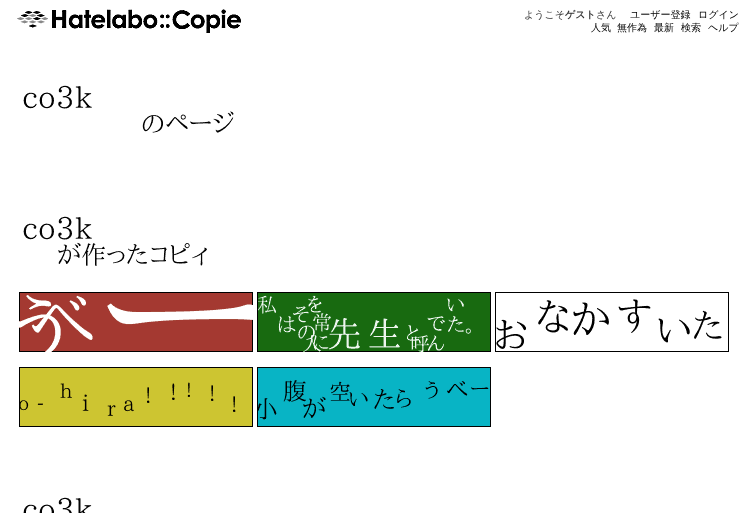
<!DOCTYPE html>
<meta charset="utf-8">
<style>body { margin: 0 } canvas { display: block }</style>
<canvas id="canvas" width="756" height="513"></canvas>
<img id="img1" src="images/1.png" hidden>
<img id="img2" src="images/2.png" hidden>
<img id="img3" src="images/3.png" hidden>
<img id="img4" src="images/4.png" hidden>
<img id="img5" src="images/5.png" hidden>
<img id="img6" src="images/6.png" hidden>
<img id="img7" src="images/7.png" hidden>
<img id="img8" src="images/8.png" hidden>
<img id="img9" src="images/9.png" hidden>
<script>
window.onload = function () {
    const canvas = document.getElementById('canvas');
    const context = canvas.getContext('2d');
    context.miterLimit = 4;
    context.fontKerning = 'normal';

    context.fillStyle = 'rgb(255, 255, 255)';
    context.fillRect(0, 0, 756, 513);
    context.drawImage(document.getElementById('img1'), 17, 9, 224, 24);
    context.drawImage(document.getElementById('img2'), 23, 85, 211, 48);
    context.drawImage(document.getElementById('img3'), 23, 216, 184, 50);
    context.drawImage(document.getElementById('img4'), 19, 292, 234, 60);
    context.drawImage(document.getElementById('img5'), 257, 292, 234, 60);
    context.drawImage(document.getElementById('img6'), 495, 292, 234, 60);
    context.drawImage(document.getElementById('img7'), 19, 367, 234, 60);
    context.drawImage(document.getElementById('img8'), 257, 367, 234, 60);
    context.drawImage(document.getElementById('img9'), 23, 497, 69, 16);
    context.font = '500 10px WenQuanYi Zen Hei';
    context.fillStyle = 'rgb(51, 51, 51)';
    context.fillText('ようこそ', 524, 18);
    context.font = 'bold 10px WenQuanYi Zen Hei';
    context.fillText('ゲスト', 565, 18);
    context.font = '500 10px WenQuanYi Zen Hei';
    context.fillText('さん', 596, 18);
    context.fillStyle = 'rgb(0, 0, 0)';
    context.fillText('ユーザー登録', 630, 18);
    context.fillText('ログイン', 698, 18);
    context.fillText('人気', 591, 31);
    context.fillText('無作為', 617, 31);
    context.fillText('最新', 654, 31);
    context.fillText('検索', 681, 31);
    context.fillText('ヘルプ', 708, 31);
};
</script>
